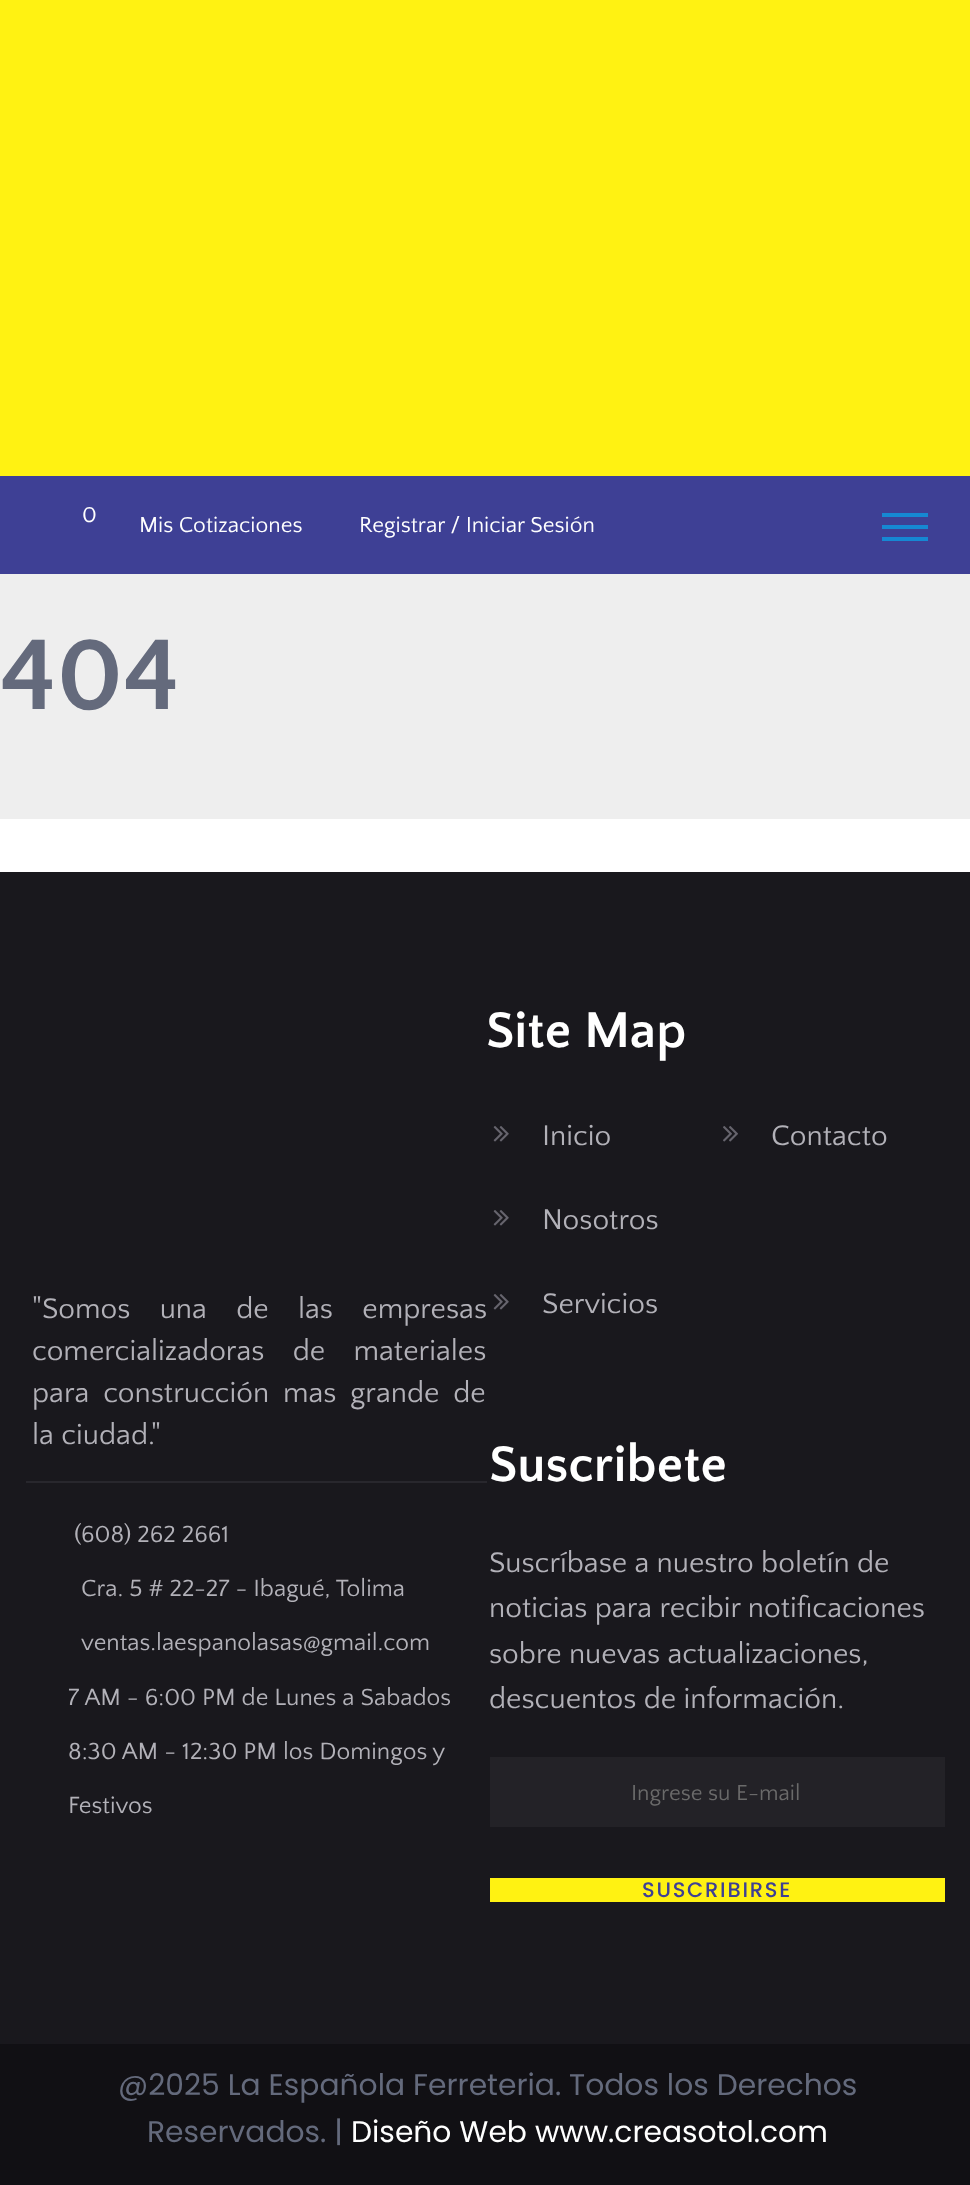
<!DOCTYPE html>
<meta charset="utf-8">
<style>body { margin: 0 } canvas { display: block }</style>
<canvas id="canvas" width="970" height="2185"></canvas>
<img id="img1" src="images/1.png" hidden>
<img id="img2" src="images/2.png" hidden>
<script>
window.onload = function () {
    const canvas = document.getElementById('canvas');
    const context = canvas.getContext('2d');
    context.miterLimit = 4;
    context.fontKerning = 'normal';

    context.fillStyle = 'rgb(255, 255, 255)';
    context.fillRect(0, 0, 970, 2185);
    context.fillStyle = 'rgb(255, 242, 18)';
    context.fillRect(0, 0, 970, 476);
    context.fillStyle = 'rgb(62, 64, 149)';
    context.fillRect(0, 476, 970, 98);
    context.fillStyle = 'rgb(22, 136, 211)';
    context.fillRect(882, 513, 46, 4);
    context.fillRect(882, 525, 46, 4);
    context.fillRect(882, 537, 46, 4);
    context.fillStyle = 'rgb(238, 238, 238)';
    context.fillRect(0, 574, 970, 245);
    context.fillStyle = 'rgb(25, 24, 29)';
    context.fillRect(0, 872, 970, 1172);
    context.drawImage(document.getElementById('img1'), 493, 1126, 16, 16);
    context.drawImage(document.getElementById('img1'), 493, 1210, 16, 16);
    context.drawImage(document.getElementById('img1'), 493, 1294, 16, 16);
    context.drawImage(document.getElementById('img2'), 723, 1126, 15, 16);
    context.fillStyle = 'rgb(40, 39, 45)';
    context.fillRect(26, 1481, 461, 2);
    context.fillStyle = 'rgb(35, 34, 39)';
    context.fillRect(490, 1757, 455, 70);
    context.fillStyle = 'rgb(255, 242, 18)';
    context.fillRect(490, 1878, 455, 24);
    context.fillStyle = 'rgb(17, 16, 20)';
    context.fillRect(0, 2044, 970, 141);
    context.font = '22.75px Quattrocento Sans';
    context.fillStyle = 'rgb(255, 255, 255)';
    context.fillText('0', 82, 522);
    context.fillText('Mis Cotizaciones', 139, 532);
    context.fillText('Registrar / Iniciar Sesión', 359, 532);
    context.font = 'bold 105px Quattrocento Sans';
    context.fillStyle = 'rgb(100, 106, 124)';
    context.fillText('404', 0, 709);
    context.font = 'bold 52.5px Quattrocento Sans';
    context.fillStyle = 'rgb(255, 255, 255)';
    context.fillText('Site Map', 486, 1047);
    context.font = '29.75px Quattrocento Sans';
    context.fillStyle = 'rgb(178, 177, 184)';
    context.fillText('Inicio', 542, 1145);
    context.fillText('Nosotros', 542, 1229);
    context.fillText('Servicios', 542, 1313);
    context.fillText('Contacto', 771, 1145);
    context.wordSpacing = '22px';
    context.fillText('"Somos una de las empresas', 32, 1318);
    context.wordSpacing = '21px';
    context.fillText('comercializadoras de materiales', 32, 1360);
    context.wordSpacing = '6.5px';
    context.fillText('para construcción mas grande de', 32, 1402);
    context.wordSpacing = '0px';
    context.fillText('la ciudad."', 32, 1444);
    context.font = '24.5px Quattrocento Sans';
    context.fillText('(608) 262 2661', 74, 1542);
    context.fillText('Cra. 5 # 22-27 - Ibagué, Tolima', 81, 1596);
    context.fillText('ventas.laespanolasas@gmail.com', 81, 1650);
    context.fillText('7 AM - 6:00 PM de Lunes a Sabados', 68, 1705);
    context.fillText('8:30 AM - 12:30 PM los Domingos y', 68, 1759);
    context.fillText('Festivos', 68, 1813);
    context.font = 'bold 52.5px Quattrocento Sans';
    context.fillStyle = 'rgb(255, 255, 255)';
    context.fillText('Suscribete', 489, 1481);
    context.font = '29.75px Quattrocento Sans';
    context.fillStyle = 'rgb(178, 177, 184)';
    context.fillText('Suscríbase a nuestro boletín de', 489, 1572);
    context.fillText('noticias para recibir notificaciones', 489, 1617);
    context.fillText('sobre nuevas actualizaciones,', 489, 1663);
    context.fillText('descuentos de información.', 489, 1708);
    context.font = '22.75px Quattrocento Sans';
    context.fillStyle = 'rgb(106, 106, 106)';
    context.fillText('Ingrese su E-mail', 631, 1800);
    context.letterSpacing = '1.75px';
    context.font = '500 21px Poppins';
    context.fillStyle = 'rgb(62, 64, 149)';
    context.fillText('SUSCRIBIRSE', 642, 1897);
    context.letterSpacing = '0px';
    context.font = '29.75px Poppins';
    context.fillStyle = 'rgb(100, 106, 124)';
    context.fillText('@2025 La Española Ferreteria. Todos los Derechos', 118, 2095);
    context.fillText('Reservados. |', 147, 2142);
    context.fillStyle = 'rgb(255, 255, 255)';
    context.fillText('Diseño Web www.creasotol.com', 351, 2142);
};
</script>
